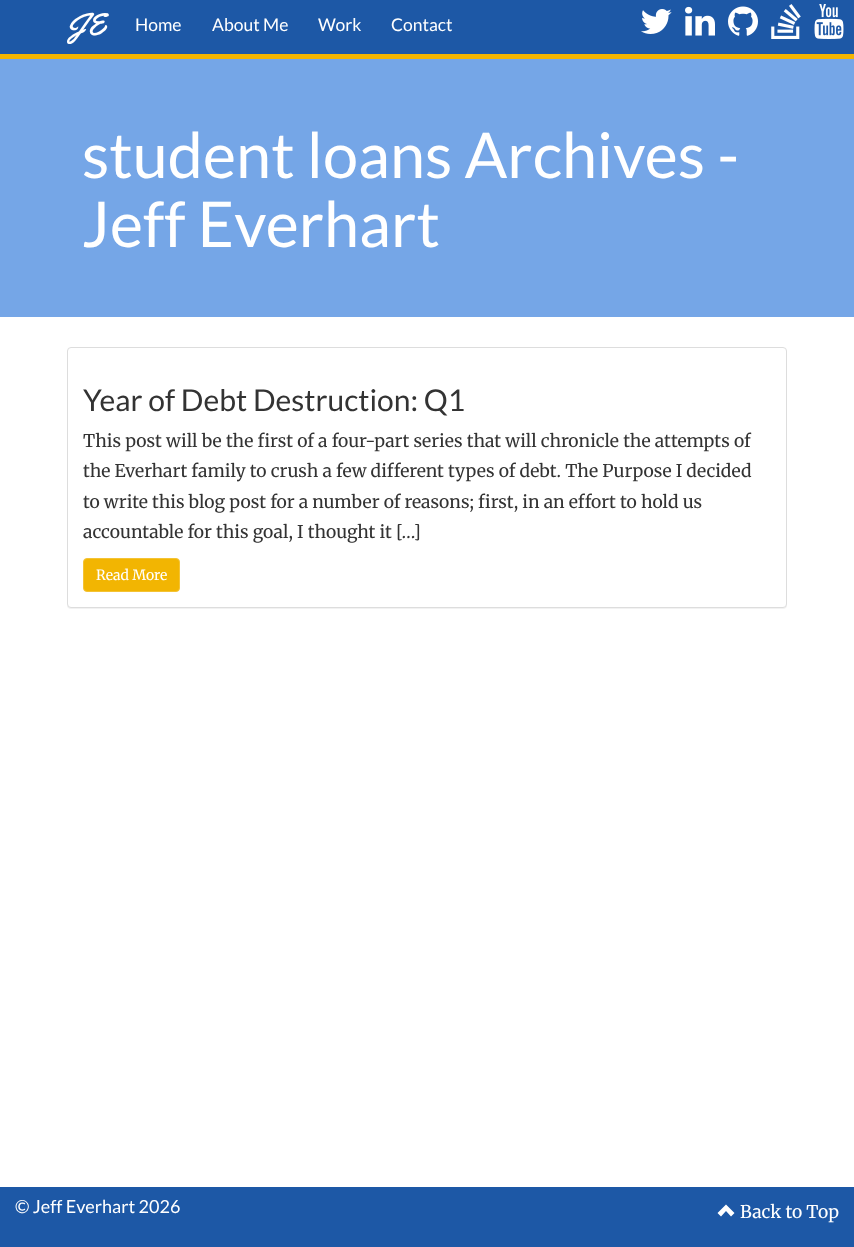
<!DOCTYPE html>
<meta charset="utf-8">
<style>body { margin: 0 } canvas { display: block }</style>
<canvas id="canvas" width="854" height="1247"></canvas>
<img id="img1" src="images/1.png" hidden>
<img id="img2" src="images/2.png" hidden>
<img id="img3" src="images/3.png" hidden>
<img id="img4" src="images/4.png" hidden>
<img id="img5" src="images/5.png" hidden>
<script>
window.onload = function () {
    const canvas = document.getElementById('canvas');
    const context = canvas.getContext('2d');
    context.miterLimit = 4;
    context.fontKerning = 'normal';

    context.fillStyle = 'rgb(255, 255, 255)';
    context.fillRect(0, 0, 854, 1247);
    context.fillStyle = 'rgb(29, 88, 166)';
    context.fillRect(0, 0, 854, 54);
    context.fillStyle = 'rgb(242, 181, 2)';
    context.fillRect(0, 54, 854, 5);
    context.drawImage(document.getElementById('img1'), 641, 9, 31, 25);
    context.drawImage(document.getElementById('img2'), 685, 6, 30, 30);
    context.drawImage(document.getElementById('img3'), 728, 6, 30, 30);
    context.drawImage(document.getElementById('img4'), 771, 4, 30, 35);
    context.drawImage(document.getElementById('img5'), 814, 4, 30, 35);
    context.fillStyle = 'rgb(117, 166, 231)';
    context.fillRect(0, 59, 854, 258);
    context.fillStyle = 'rgba(0, 0, 0, 0.05)';
    context.filter = 'blur(0.5px)';
    context.beginPath();
    context.roundRect(67, 348, 720, 261, 4);
    context.fill();
    context.filter = 'none';
    context.fillStyle = 'rgb(255, 255, 255)';
    context.beginPath();
    context.roundRect(67.5, 347.5, 719, 260, 3.5);
    context.fill();
    context.strokeStyle = 'rgb(221, 221, 221)';
    context.stroke();
    context.fillStyle = 'rgb(242, 181, 2)';
    context.beginPath();
    context.roundRect(83.5, 558.5, 96, 33, 3.5);
    context.fill();
    context.strokeStyle = 'rgb(244, 195, 52)';
    context.stroke();
    context.fillStyle = 'rgb(29, 88, 166)';
    context.fillRect(0, 1187, 854, 60);
    context.fillStyle = 'rgb(255, 255, 255)';
    context.beginPath();
    context.moveTo(717.5, 1213);
    context.lineTo(721, 1216.5);
    context.lineTo(726, 1211);
    context.lineTo(731, 1216.5);
    context.lineTo(734.5, 1213);
    context.lineTo(726, 1204.5);
    context.closePath();
    context.fill();
    context.font = '31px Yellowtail';
    context.fillText('JE', 67, 35);
    context.font = '17.5px Lato';
    context.fillText('Home', 135, 31);
    context.fillText('About Me', 212, 31);
    context.fillText('Work', 318, 31);
    context.fillText('Contact', 391, 31);
    context.font = '63px Lato';
    context.fillText('student loans Archives -', 82, 178);
    context.fillText('Jeff Everhart', 82, 247);
    context.font = '30px Lato';
    context.fillStyle = 'rgb(51, 51, 51)';
    context.fillText('Year of Debt Destruction: Q1', 83, 411);
    context.font = '300 17.5px Merriweather';
    context.fillText('This post will be the first of a four-part series that will chronicle the attempts of', 83, 447);
    context.fillText('the Everhart family to crush a few different types of debt. The Purpose I decided', 83, 477);
    context.fillText('to write this blog post for a number of reasons; first, in an effort to hold us', 83, 508);
    context.fillText('accountable for this goal, I thought it […]', 83, 538);
    context.font = '300 14px Merriweather';
    context.fillStyle = 'rgb(255, 255, 255)';
    context.fillText('Read More', 96, 580);
    context.font = '18px Lato';
    context.fillText('© Jeff Everhart 2026', 15, 1213);
    context.font = '300 17.5px Merriweather';
    context.fillText('Back to Top', 740, 1218);
};
</script>
